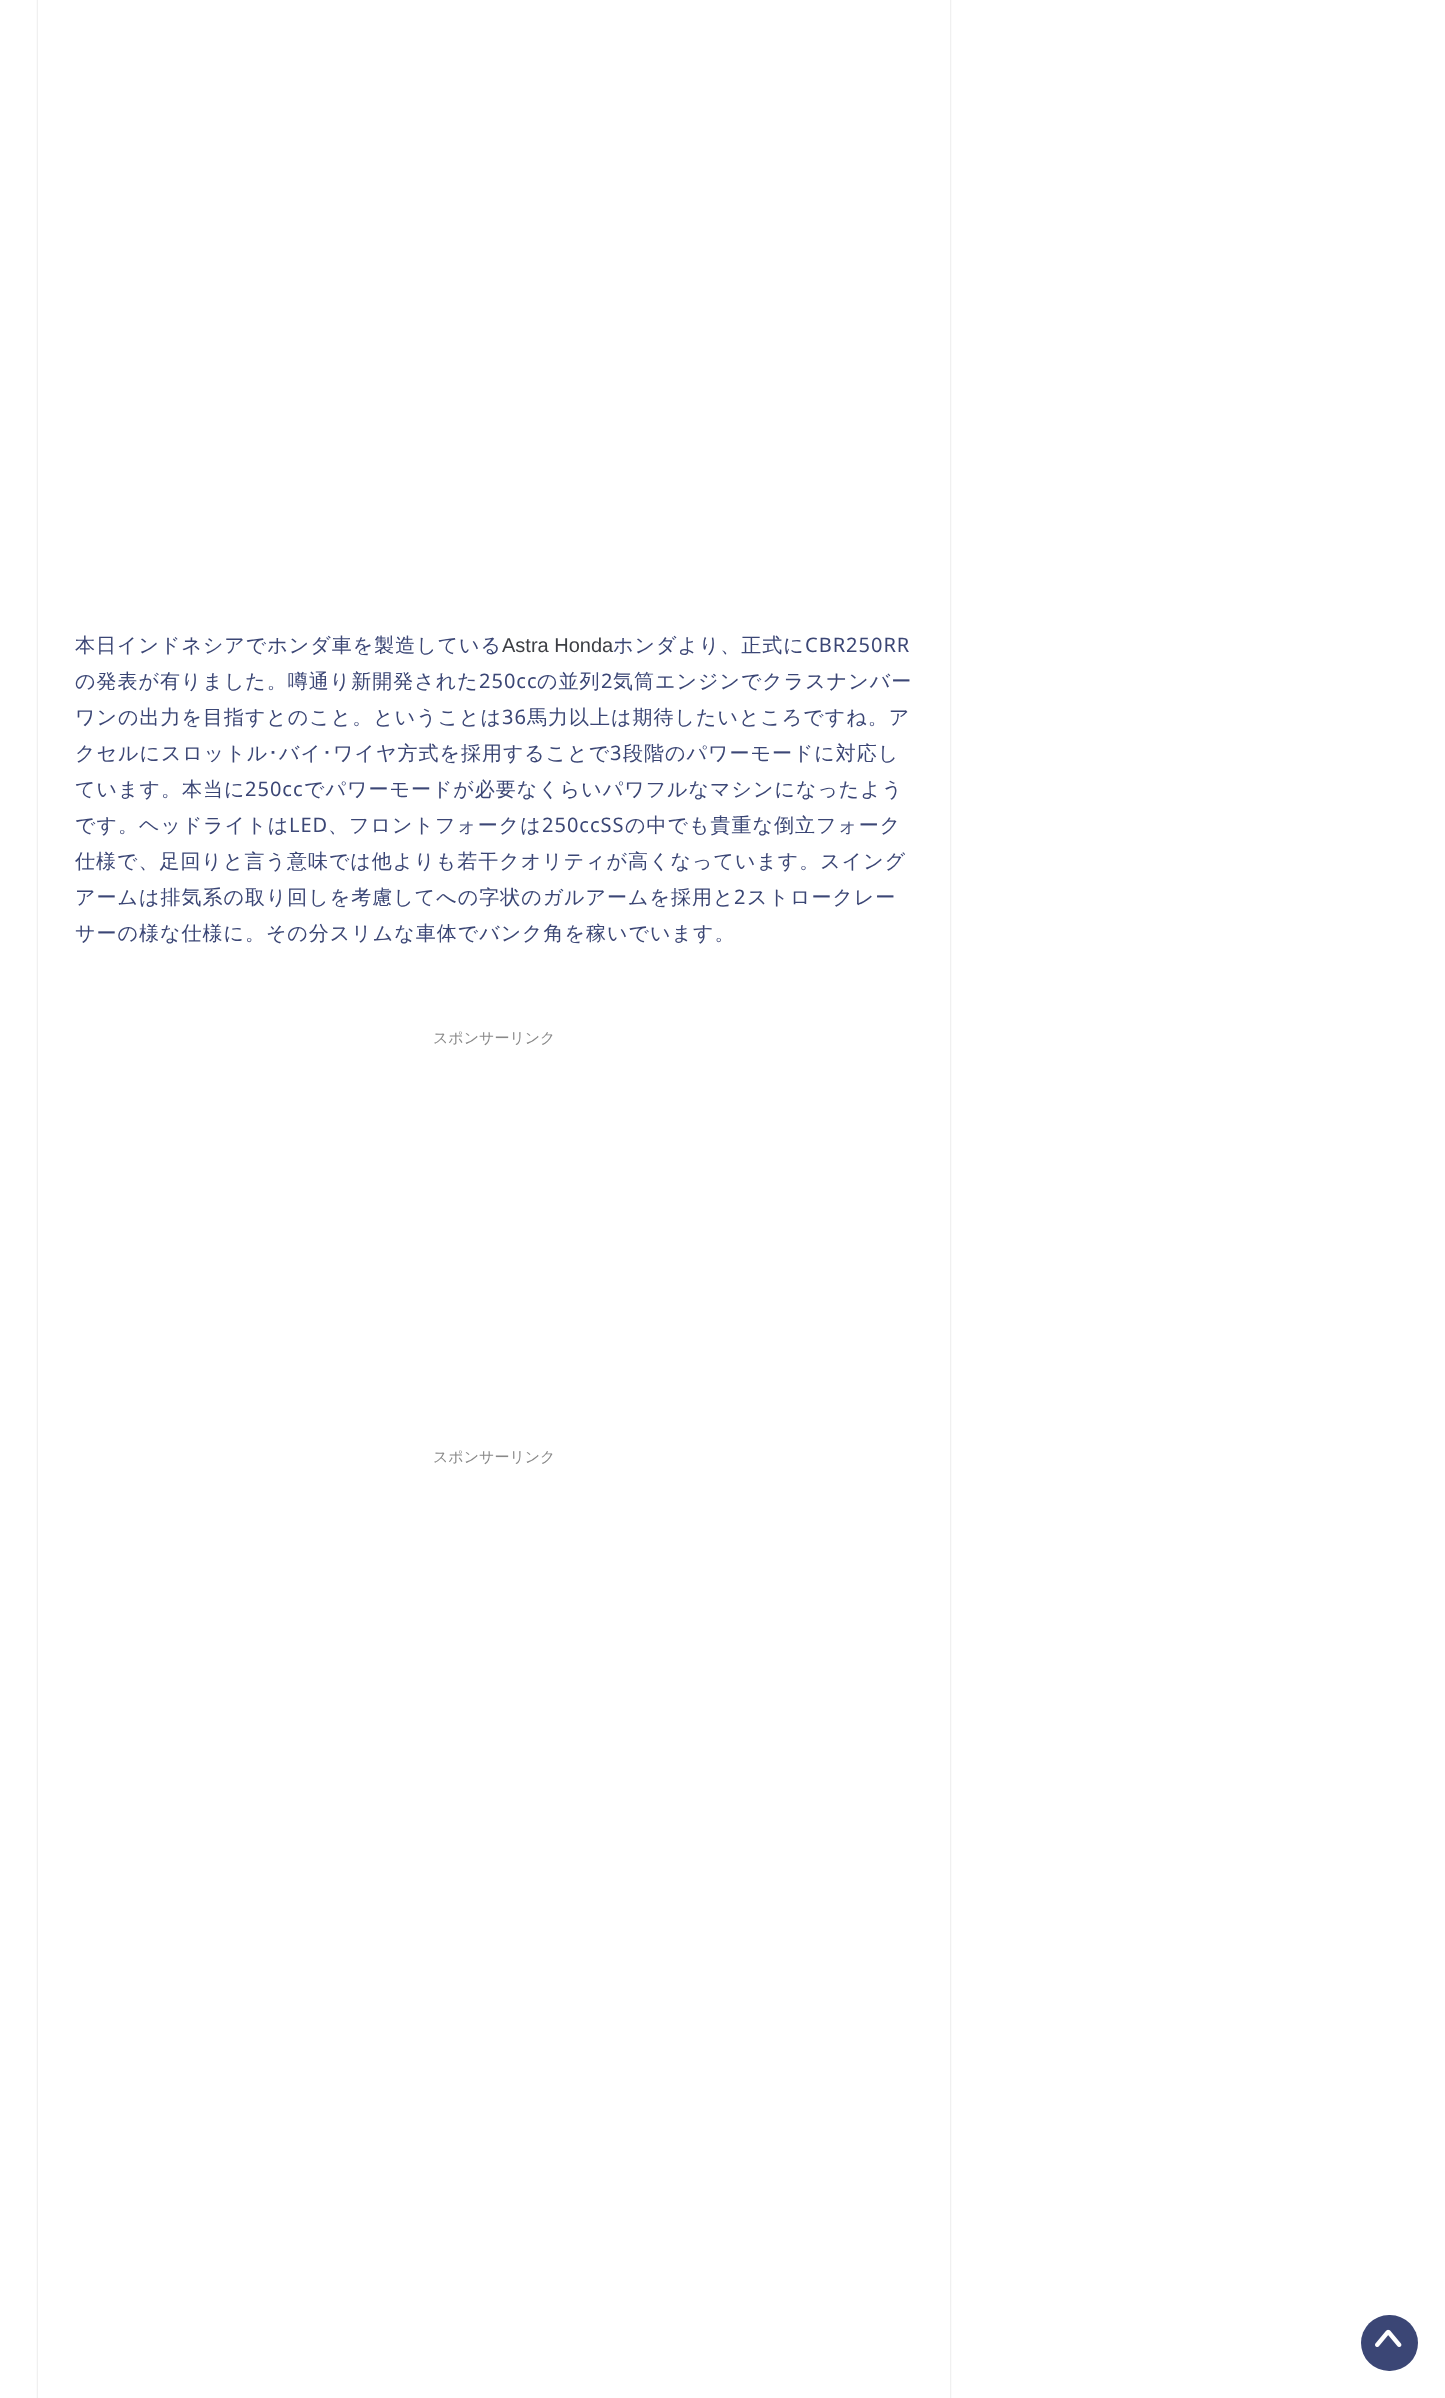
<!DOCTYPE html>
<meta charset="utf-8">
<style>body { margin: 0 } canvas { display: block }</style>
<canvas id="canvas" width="1445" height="2398"></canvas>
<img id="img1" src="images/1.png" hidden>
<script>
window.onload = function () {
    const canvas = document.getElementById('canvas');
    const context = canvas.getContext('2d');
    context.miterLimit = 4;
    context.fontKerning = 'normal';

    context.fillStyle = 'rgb(255, 255, 255)';
    context.fillRect(0, 0, 1445, 2398);
    context.save();
    context.beginPath();
    context.moveTo(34, 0);
    context.lineTo(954, 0);
    context.lineTo(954, 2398);
    context.lineTo(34, 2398);
    context.closePath();
    context.moveTo(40.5, -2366);
    context.lineTo(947.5, -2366);
    context.bezierCurveTo(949, -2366, 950, -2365, 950, -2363.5);
    context.lineTo(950, 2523.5);
    context.bezierCurveTo(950, 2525, 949, 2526, 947.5, 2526);
    context.lineTo(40.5, 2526);
    context.bezierCurveTo(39, 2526, 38, 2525, 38, 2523.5);
    context.lineTo(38, -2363.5);
    context.bezierCurveTo(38, -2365, 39, -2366, 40.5, -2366);
    context.closePath();
    context.clip('evenodd');
    context.fillStyle = 'rgba(0, 0, 0, 0.18)';
    context.filter = 'blur(1px)';
    context.beginPath();
    context.roundRect(38, -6, 912, 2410, 2.5);
    context.fill();
    context.filter = 'none';
    context.restore();
    context.fillStyle = 'rgb(59, 70, 117)';
    context.beginPath();
    context.roundRect(1361, 2315, 57, 56, 28);
    context.fill();
    context.drawImage(document.getElementById('img1'), 1375, 2329, 27, 18);
    context.letterSpacing = '1px';
    context.font = '500 20px WenQuanYi Zen Hei';
    context.fillText('本日インドネシアでホンダ車を製造している', 75, 652);
    context.letterSpacing = '0px';
    context.font = '20px Liberation Sans';
    context.fillStyle = 'rgb(61, 63, 68)';
    context.fillText('Astra Honda', 502, 652);
    context.letterSpacing = '1px';
    context.font = '500 20px WenQuanYi Zen Hei';
    context.fillStyle = 'rgb(59, 70, 117)';
    context.fillText('ホンダより、正式に', 613, 652);
    context.font = '20px Noto Sans';
    context.fillText('CBR250RR', 805, 652);
    context.font = '500 20px WenQuanYi Zen Hei';
    context.fillText('の発表が有りました。噂通り新開発された', 75, 688);
    context.font = '20px Noto Sans';
    context.fillText('250cc', 479, 688);
    context.font = '500 20px WenQuanYi Zen Hei';
    context.fillText('の並列', 537, 688);
    context.font = '20px Noto Sans';
    context.fillText('2', 601, 688);
    context.font = '500 20px WenQuanYi Zen Hei';
    context.fillText('気筒エンジンでクラスナンバー', 613, 688);
    context.fillText('ワンの出力を目指すとのこと。ということは', 75, 724);
    context.font = '20px Noto Sans';
    context.fillText('36', 502, 724);
    context.font = '500 20px WenQuanYi Zen Hei';
    context.fillText('馬力以上は期待したいところですね。ア', 527, 724);
    context.fillText('クセルにスロットル', 75, 760);
    context.font = '20px IPAPGothic';
    context.fillText('･', 268, 760);
    context.font = '500 20px WenQuanYi Zen Hei';
    context.fillText('バイ', 279, 760);
    context.font = '20px IPAPGothic';
    context.fillText('･', 322, 760);
    context.font = '500 20px WenQuanYi Zen Hei';
    context.fillText('ワイヤ方式を採用することで', 333, 760);
    context.font = '20px Noto Sans';
    context.fillText('3', 610, 760);
    context.font = '500 20px WenQuanYi Zen Hei';
    context.fillText('段階のパワーモードに対応し', 623, 760);
    context.fillText('ています。本当に', 75, 796);
    context.font = '20px Noto Sans';
    context.fillText('250cc', 245, 796);
    context.font = '500 20px WenQuanYi Zen Hei';
    context.fillText('でパワーモードが必要なくらいパワフルなマシンになったよう', 304, 796);
    context.fillText('です。ヘッドライトは', 75, 832);
    context.font = '20px Noto Sans';
    context.fillText('LED', 289, 832);
    context.font = '500 20px WenQuanYi Zen Hei';
    context.fillText('、フロントフォークは', 328, 832);
    context.font = '20px Noto Sans';
    context.fillText('250ccSS', 542, 832);
    context.font = '500 20px WenQuanYi Zen Hei';
    context.fillText('の中でも貴重な倒立フォーク', 625, 832);
    context.fillText('仕様で、足回りと言う意味では他よりも若干クオリティが高くなっています。スイング', 75, 868);
    context.fillText('アームは排気系の取り回しを考慮してへの字状のガルアームを採用と', 75, 904);
    context.font = '20px Noto Sans';
    context.fillText('2', 734, 904);
    context.font = '500 20px WenQuanYi Zen Hei';
    context.fillText('ストロークレー', 747, 904);
    context.fillText('サーの様な仕様に。その分スリムな車体でバンク角を稼いでいます。', 75, 940);
    context.letterSpacing = '0px';
    context.font = '500 15px WenQuanYi Zen Hei';
    context.fillStyle = 'rgb(136, 136, 136)';
    context.fillText('スポンサーリンク', 433, 1043);
    context.fillText('スポンサーリンク', 433, 1462);
};
</script>
